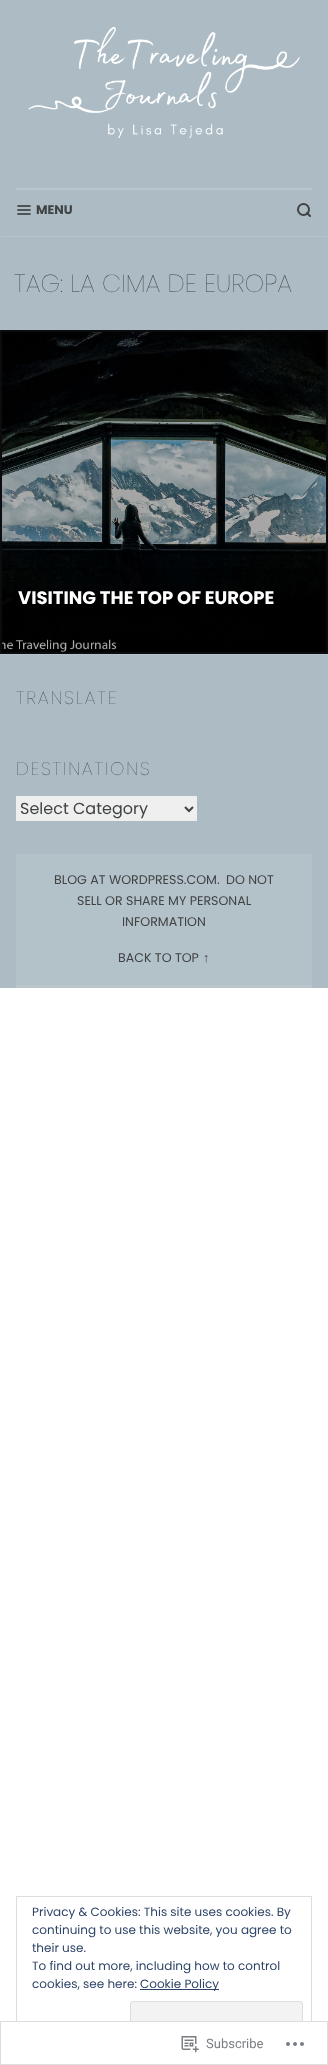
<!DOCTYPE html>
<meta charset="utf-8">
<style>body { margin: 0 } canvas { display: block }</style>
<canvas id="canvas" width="328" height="2065"></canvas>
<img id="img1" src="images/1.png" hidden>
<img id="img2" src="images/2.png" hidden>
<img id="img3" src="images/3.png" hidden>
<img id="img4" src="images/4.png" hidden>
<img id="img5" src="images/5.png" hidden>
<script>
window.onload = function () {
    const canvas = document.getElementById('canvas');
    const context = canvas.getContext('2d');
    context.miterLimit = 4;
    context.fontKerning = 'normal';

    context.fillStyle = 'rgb(255, 255, 255)';
    context.fillRect(0, 0, 328, 2065);
    context.fillStyle = 'rgb(173, 188, 196)';
    context.fillRect(0, 0, 328, 330);
    context.drawImage(document.getElementById('img1'), 28, 26, 272, 112);
    context.fillStyle = 'rgb(185, 198, 205)';
    context.fillRect(16, 188, 296, 2);
    context.drawImage(document.getElementById('img2'), 17, 205, 14, 10);
    context.beginPath();
    context.arc(303.5, 209.5, 5.5, 0, 2 * Math.PI);
    context.strokeStyle = 'rgb(66, 66, 66)';
    context.lineWidth = 2;
    context.stroke();
    context.beginPath();
    context.moveTo(310, 216);
    context.lineTo(307, 213);
    context.lineCap = 'round';
    context.lineJoin = 'round';
    context.stroke();
    context.fillStyle = 'rgb(181, 195, 202)';
    context.fillRect(2, 236, 324, 1);
    context.strokeStyle = 'rgb(12, 12, 14)';
    context.lineJoin = 'miter';
    context.strokeRect(1, 331, 326, 322);
    context.drawImage(document.getElementById('img3'), 2, 332, 324, 320);
    context.fillStyle = 'rgb(173, 188, 196)';
    context.fillRect(0, 655, 328, 333);
    context.fillStyle = 'rgb(181, 195, 202)';
    context.fillRect(0, 654, 328, 1);
    context.fillStyle = 'rgb(239, 239, 239)';
    context.fillRect(16, 796, 181, 25);
    context.beginPath();
    context.moveTo(185, 807);
    context.lineTo(189, 811);
    context.lineTo(193, 807);
    context.strokeStyle = 'rgb(64, 67, 68)';
    context.lineCap = 'butt';
    context.stroke();
    context.fillStyle = 'rgb(179, 193, 200)';
    context.fillRect(16, 854, 296, 131);
    context.fillStyle = 'rgb(185, 198, 204)';
    context.fillRect(16, 985, 296, 3);
    context.strokeStyle = 'rgb(222, 222, 222)';
    context.lineWidth = 1;
    context.strokeRect(16.5, 1896.5, 295, 152);
    context.fillStyle = 'rgb(46, 68, 103)';
    context.fillRect(140, 1989, 79, 1);
    context.fillStyle = 'rgb(243, 243, 243)';
    context.beginPath();
    context.roundRect(130.5, 2001.5, 172, 38, 2.5);
    context.fill();
    context.stroke();
    context.fillStyle = 'rgba(255, 255, 255, 0.98)';
    context.fillRect(16, 2021, 296, 28);
    context.strokeStyle = 'rgba(220, 220, 222, 0.98)';
    context.strokeRect(0.5, 2021.5, 327, 43);
    context.drawImage(document.getElementById('img4'), 181, 2036, 18, 17);
    context.drawImage(document.getElementById('img5'), 286, 2042, 18, 4);
    context.font = 'bold 12.6px Poppins';
    context.fillStyle = 'rgb(64, 67, 68)';
    context.fillText('MENU', 36, 214);
    context.font = '100 24.75px Poppins';
    context.fillText('TAG: LA CIMA DE EUROPA', 14, 292);
    context.font = 'bold 18px Poppins';
    context.fillStyle = 'rgb(255, 255, 255)';
    context.fillText('VISITING THE TOP OF EUROPE', 18, 604);
    context.letterSpacing = '1.75px';
    context.font = '100 18.25px Poppins';
    context.fillStyle = 'rgb(64, 67, 68)';
    context.fillText('TRANSLATE', 16, 704);
    context.fillText('DESTINATIONS', 16, 775);
    context.letterSpacing = '0px';
    context.font = '16px Poppins';
    context.fillText('Select Category', 20, 814);
    context.font = '12.6px Poppins';
    context.fillText('BLOG AT WORDPRESS.COM.', 54, 884);
    context.fillText('DO NOT', 226, 884);
    context.fillText('SELL OR SHARE MY PERSONAL', 77, 905);
    context.fillText('INFORMATION', 122, 926);
    context.fillText('BACK TO TOP', 118, 962);
    context.font = '12.6px Liberation Sans';
    context.fillText('↑', 203, 962);
    context.font = '12px Poppins';
    context.fillStyle = 'rgb(46, 68, 103)';
    context.fillText('Privacy & Cookies: This site uses cookies. By', 32, 1916);
    context.fillText('continuing to use this website, you agree to', 32, 1934);
    context.fillText('their use.', 32, 1952);
    context.fillText('To find out more, including how to control', 32, 1970);
    context.fillText('cookies, see here:', 32, 1988);
    context.fillText('Cookie Policy', 140, 1988);
    context.font = '13px Roboto';
    context.fillStyle = 'rgb(123, 127, 132)';
    context.fillText('Subscribe', 206, 2048);
};
</script>
